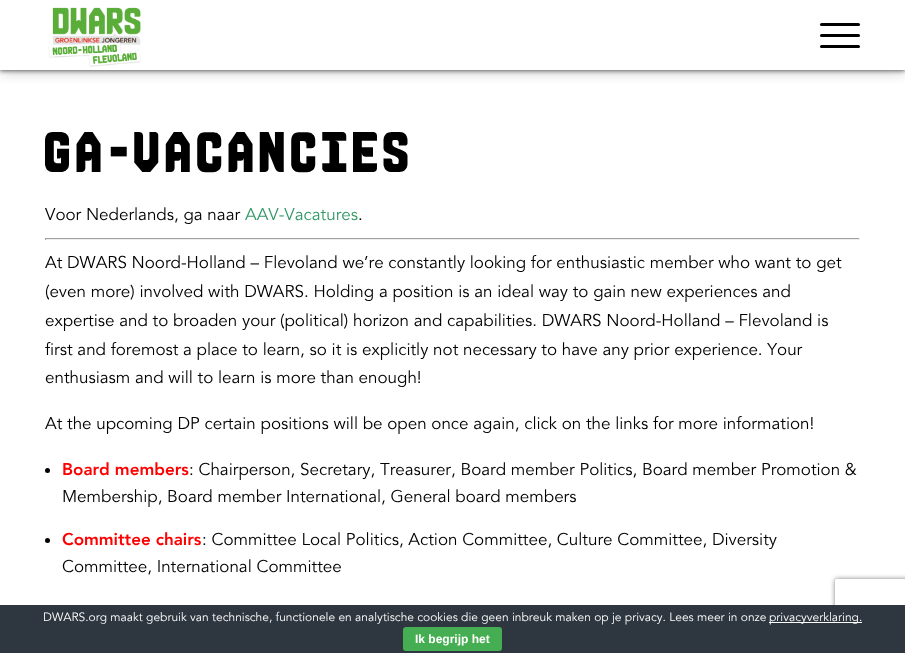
<!DOCTYPE html>
<meta charset="utf-8">
<style>body { margin: 0 } canvas { display: block }</style>
<canvas id="canvas" width="905" height="653"></canvas>
<img id="img1" src="images/1.png" hidden>
<script>
window.onload = function () {
    const canvas = document.getElementById('canvas');
    const context = canvas.getContext('2d');
    context.miterLimit = 4;
    context.fontKerning = 'normal';

    context.fillStyle = 'rgb(255, 255, 255)';
    context.fillRect(0, 0, 905, 653);
    context.save();
    context.beginPath();
    context.rect(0, 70, 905, 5);
    context.clip();
    context.fillStyle = 'rgb(35, 35, 35)';
    context.filter = 'blur(2.5px)';
    context.beginPath();
    context.rect(0, 0, 905, 70);
    context.fill();
    context.filter = 'none';
    context.restore();
    context.save();
    context.beginPath();
    context.rect(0, 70, 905, 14);
    context.clip();
    context.fillStyle = 'rgba(125, 125, 125, 0.56)';
    context.filter = 'blur(7.5px)';
    context.beginPath();
    context.rect(0, 0, 905, 70);
    context.fill();
    context.filter = 'none';
    context.restore();
    context.drawImage(document.getElementById('img1'), 48, 7, 93, 60);
    context.fillStyle = 'rgb(0, 0, 0)';
    context.beginPath();
    context.roundRect(820, 23, 40, 3, 1.5);
    context.fill();
    context.beginPath();
    context.roundRect(820, 34, 40, 3, 1.5);
    context.fill();
    context.beginPath();
    context.roundRect(820, 45, 40, 3, 1.5);
    context.fill();
    context.fillStyle = 'rgb(159, 159, 159)';
    context.fillRect(45, 238, 815, 1);
    context.fillStyle = 'rgb(238, 238, 238)';
    context.fillRect(859, 238, 1, 2);
    context.fillRect(45, 239, 815, 1);
    context.fillStyle = 'rgb(159, 159, 159)';
    context.fillRect(45, 238, 1, 2);
    context.fillStyle = 'rgb(0, 0, 0)';
    context.beginPath();
    context.arc(47.5, 470.5, 2.5, 0, 2 * Math.PI);
    context.fill();
    context.beginPath();
    context.arc(47.5, 540.5, 2.5, 0, 2 * Math.PI);
    context.fill();
    context.save();
    context.beginPath();
    context.moveTo(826, 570);
    context.lineTo(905, 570);
    context.lineTo(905, 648);
    context.lineTo(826, 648);
    context.closePath();
    context.moveTo(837, 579);
    context.lineTo(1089, 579);
    context.bezierCurveTo(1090, 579, 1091, 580, 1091, 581);
    context.lineTo(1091, 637);
    context.bezierCurveTo(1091, 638, 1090, 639, 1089, 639);
    context.lineTo(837, 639);
    context.bezierCurveTo(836, 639, 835, 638, 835, 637);
    context.lineTo(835, 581);
    context.bezierCurveTo(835, 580, 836, 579, 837, 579);
    context.closePath();
    context.clip('evenodd');
    context.fillStyle = 'rgb(128, 128, 128)';
    context.filter = 'blur(2.5px)';
    context.beginPath();
    context.roundRect(835, 579, 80, 60, 2);
    context.fill();
    context.filter = 'none';
    context.restore();
    context.fillStyle = 'rgb(46, 54, 63)';
    context.fillRect(0, 605, 905, 48);
    context.fillStyle = 'rgb(255, 255, 255)';
    context.fillRect(769, 622, 93, 1);
    context.fillStyle = 'rgb(69, 174, 82)';
    context.beginPath();
    context.roundRect(403, 627, 99, 24, 3);
    context.fill();
    context.font = '40px "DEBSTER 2"';
    context.fillStyle = 'rgb(0, 0, 0)';
    context.fillText('GA-VACANCIES', 45, 172);
    context.font = '17px Avenir';
    context.fillText('Voor Nederlands, ga naar', 45, 220);
    context.fillStyle = 'rgb(51, 153, 102)';
    context.fillText('AAV-Vacatures', 245, 220);
    context.fillStyle = 'rgb(0, 0, 0)';
    context.fillText('.', 358, 220);
    context.fillText('At DWARS Noord-Holland – Flevoland we’re constantly looking for enthusiastic member who want to get', 45, 268);
    context.fillText('(even more) involved with DWARS. Holding a position is an ideal way to gain new experiences and', 45, 297);
    context.fillText('expertise and to broaden your (political) horizon and capabilities. DWARS Noord-Holland – Flevoland is', 45, 326);
    context.fillText('first and foremost a place to learn, so it is explicitly not necessary to have any prior experience. Your', 45, 355);
    context.fillText('enthusiasm and will to learn is more than enough!', 45, 383);
    context.fillText('At the upcoming DP certain positions will be open once again, click on the links for more information!', 45, 429);
    context.font = '900 17px Avenir';
    context.fillStyle = 'rgb(255, 0, 0)';
    context.fillText('Board members', 62, 475);
    context.font = '17px Avenir';
    context.fillStyle = 'rgb(0, 0, 0)';
    context.fillText(': Chairperson, Secretary, Treasurer, Board member Politics, Board member Promotion &', 189, 475);
    context.fillText('Membership, Board member International, General board members', 62, 502);
    context.font = '900 17px Avenir';
    context.fillStyle = 'rgb(255, 0, 0)';
    context.fillText('Committee chairs', 62, 545);
    context.font = '17px Avenir';
    context.fillStyle = 'rgb(0, 0, 0)';
    context.fillText(': Committee Local Politics, Action Committee, Culture Committee, Diversity', 202, 545);
    context.fillText('Committee, International Committee', 62, 572);
    context.font = '12px Avenir';
    context.fillStyle = 'rgb(255, 255, 255)';
    context.fillText('DWARS.org maakt gebruik van technische, functionele en analytische cookies die geen inbreuk maken op je privacy. Lees meer in onze', 43, 621);
    context.fillText('privacyverklaring.', 769, 621);
    context.font = 'bold 12px Liberation Sans';
    context.fillText('Ik begrijp het', 415, 643);
};
</script>
